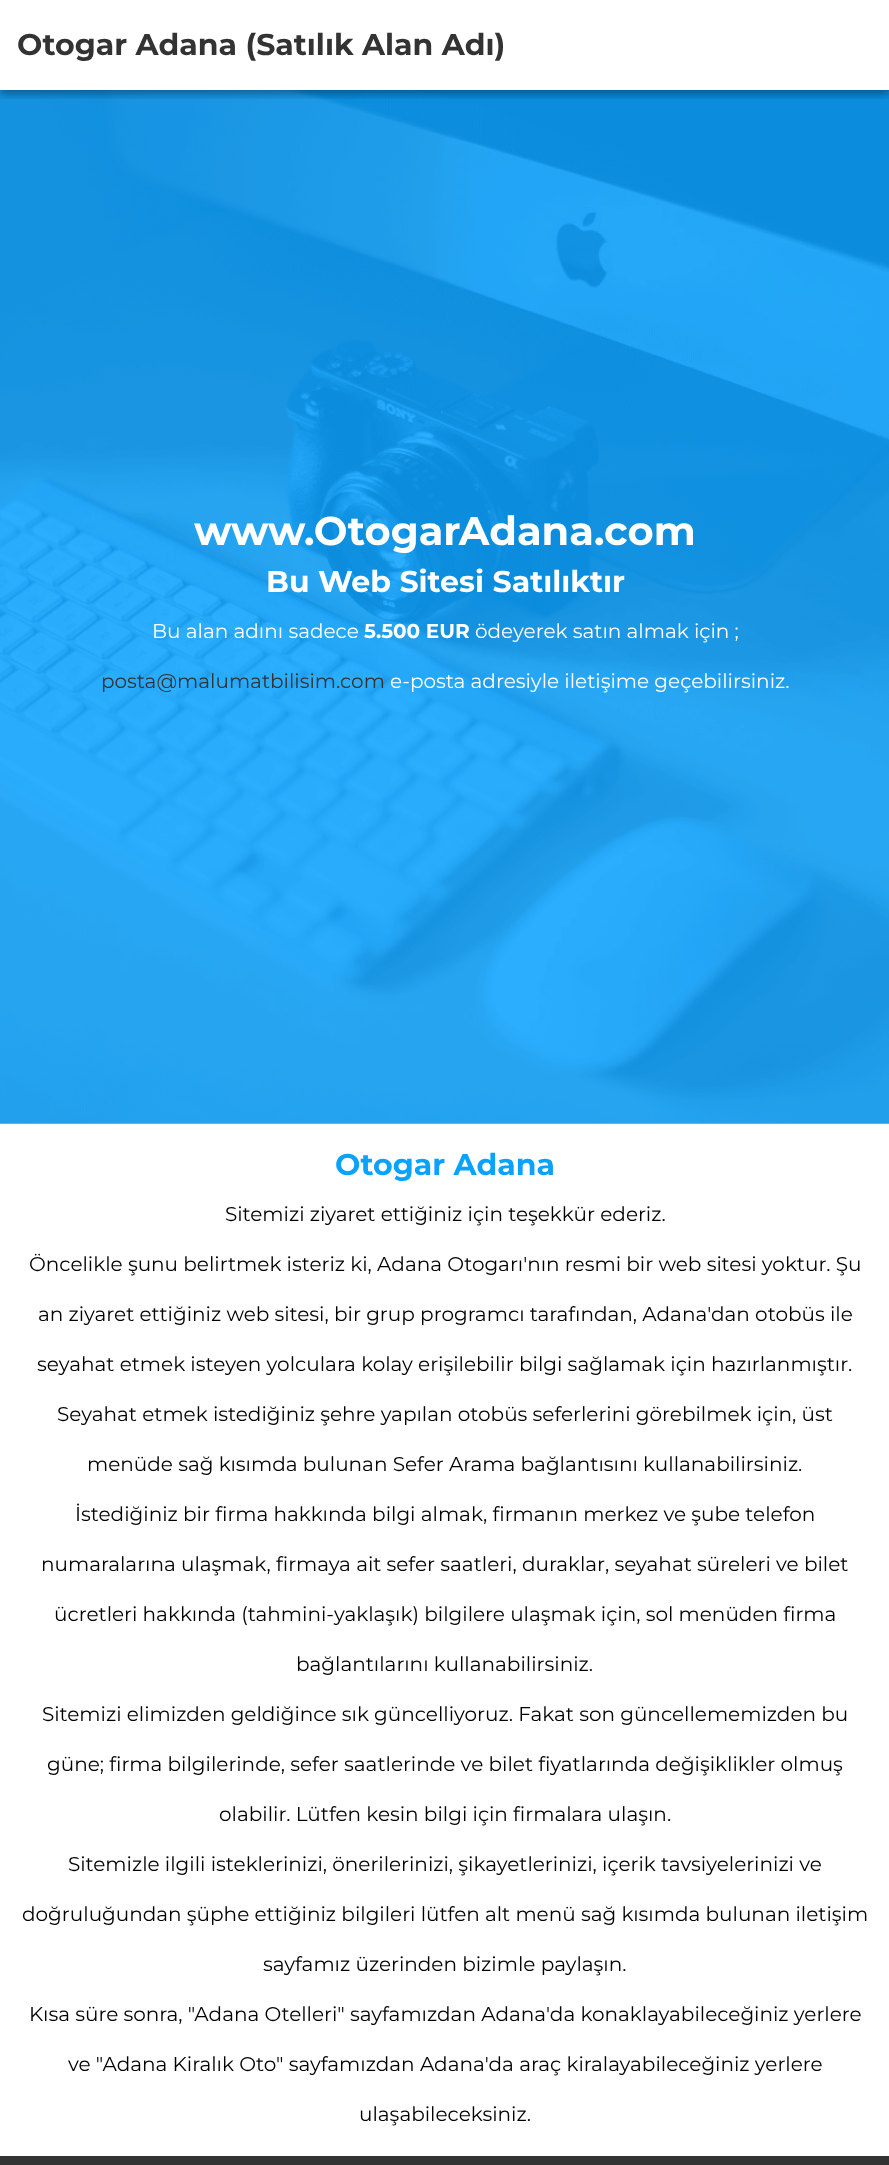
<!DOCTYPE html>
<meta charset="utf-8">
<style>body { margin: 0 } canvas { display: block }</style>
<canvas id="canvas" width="889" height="2165"></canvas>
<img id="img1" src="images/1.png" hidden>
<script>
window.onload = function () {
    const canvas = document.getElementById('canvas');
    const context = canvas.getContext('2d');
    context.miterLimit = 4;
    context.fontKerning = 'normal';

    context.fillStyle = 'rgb(255, 255, 255)';
    context.fillRect(0, 0, 889, 2165);
    context.drawImage(document.getElementById('img1'), 0, 90, 889, 1034);
    context.save();
    context.beginPath();
    context.rect(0, 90, 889, 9);
    context.clip();
    context.fillStyle = 'rgba(0, 0, 0, 0.23)';
    context.filter = 'blur(4px)';
    context.beginPath();
    context.rect(0, 4, 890, 90);
    context.fill();
    context.filter = 'none';
    context.fillStyle = 'rgba(0, 0, 0, 0.16)';
    context.filter = 'blur(4px)';
    context.beginPath();
    context.rect(0, 4, 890, 90);
    context.fill();
    context.filter = 'none';
    context.restore();
    context.fillStyle = 'rgb(51, 51, 51)';
    context.fillRect(0, 2156, 889, 9);
    context.font = 'bold 30px Montserrat';
    context.fillText('Otogar Adana (Satılık Alan Adı)', 17, 55);
    context.font = 'bold 40px Montserrat';
    context.fillStyle = 'rgb(255, 255, 255)';
    context.fillText('www.OtogarAdana.com', 194, 545);
    context.font = 'bold 30px Montserrat';
    context.fillText('Bu Web Sitesi Satılıktır', 266, 592);
    context.font = '20px Montserrat';
    context.fillText('Bu alan adını sadece', 152, 638);
    context.font = 'bold 20px Montserrat';
    context.fillText('5.500 EUR', 364, 638);
    context.font = '20px Montserrat';
    context.fillText('ödeyerek satın almak için ;', 475, 638);
    context.fillStyle = 'rgb(51, 51, 51)';
    context.fillText('posta@malumatbilisim.com', 101, 688);
    context.fillStyle = 'rgb(255, 255, 255)';
    context.fillText('e-posta adresiyle iletişime geçebilirsiniz.', 390, 688);
    context.font = 'bold 30px Montserrat';
    context.fillStyle = 'rgb(9, 162, 255)';
    context.fillText('Otogar Adana', 335, 1175);
    context.font = '20px Montserrat';
    context.fillStyle = 'rgb(0, 0, 0)';
    context.fillText('Sitemizi ziyaret ettiğiniz için teşekkür ederiz.', 225, 1221);
    context.fillText('Öncelikle şunu belirtmek isteriz ki, Adana Otogarı\'nın resmi bir web sitesi yoktur. Şu', 29, 1271);
    context.fillText('an ziyaret ettiğiniz web sitesi, bir grup programcı tarafından, Adana\'dan otobüs ile', 38, 1321);
    context.fillText('seyahat etmek isteyen yolculara kolay erişilebilir bilgi sağlamak için hazırlanmıştır.', 37, 1371);
    context.fillText('Seyahat etmek istediğiniz şehre yapılan otobüs seferlerini görebilmek için, üst', 57, 1421);
    context.fillText('menüde sağ kısımda bulunan Sefer Arama bağlantısını kullanabilirsiniz.', 87, 1471);
    context.fillText('İstediğiniz bir firma hakkında bilgi almak, firmanın merkez ve şube telefon', 75, 1521);
    context.fillText('numaralarına ulaşmak, firmaya ait sefer saatleri, duraklar, seyahat süreleri ve bilet', 41, 1571);
    context.fillText('ücretleri hakkında (tahmini-yaklaşık) bilgilere ulaşmak için, sol menüden firma', 54, 1621);
    context.fillText('bağlantılarını kullanabilirsiniz.', 296, 1671);
    context.fillText('Sitemizi elimizden geldiğince sık güncelliyoruz. Fakat son güncellememizden bu', 42, 1721);
    context.fillText('güne; firma bilgilerinde, sefer saatlerinde ve bilet fiyatlarında değişiklikler olmuş', 47, 1771);
    context.fillText('olabilir. Lütfen kesin bilgi için firmalara ulaşın.', 219, 1821);
    context.fillText('Sitemizle ilgili isteklerinizi, önerilerinizi, şikayetlerinizi, içerik tavsiyelerinizi ve', 68, 1871);
    context.fillText('doğruluğundan şüphe ettiğiniz bilgileri lütfen alt menü sağ kısımda bulunan iletişim', 22, 1921);
    context.fillText('sayfamız üzerinden bizimle paylaşın.', 263, 1971);
    context.fillText('Kısa süre sonra, "Adana Otelleri" sayfamızdan Adana\'da konaklayabileceğiniz yerlere', 29, 2021);
    context.fillText('ve "Adana Kiralık Oto" sayfamızdan Adana\'da araç kiralayabileceğiniz yerlere', 68, 2071);
    context.fillText('ulaşabileceksiniz.', 359, 2121);
};
</script>
